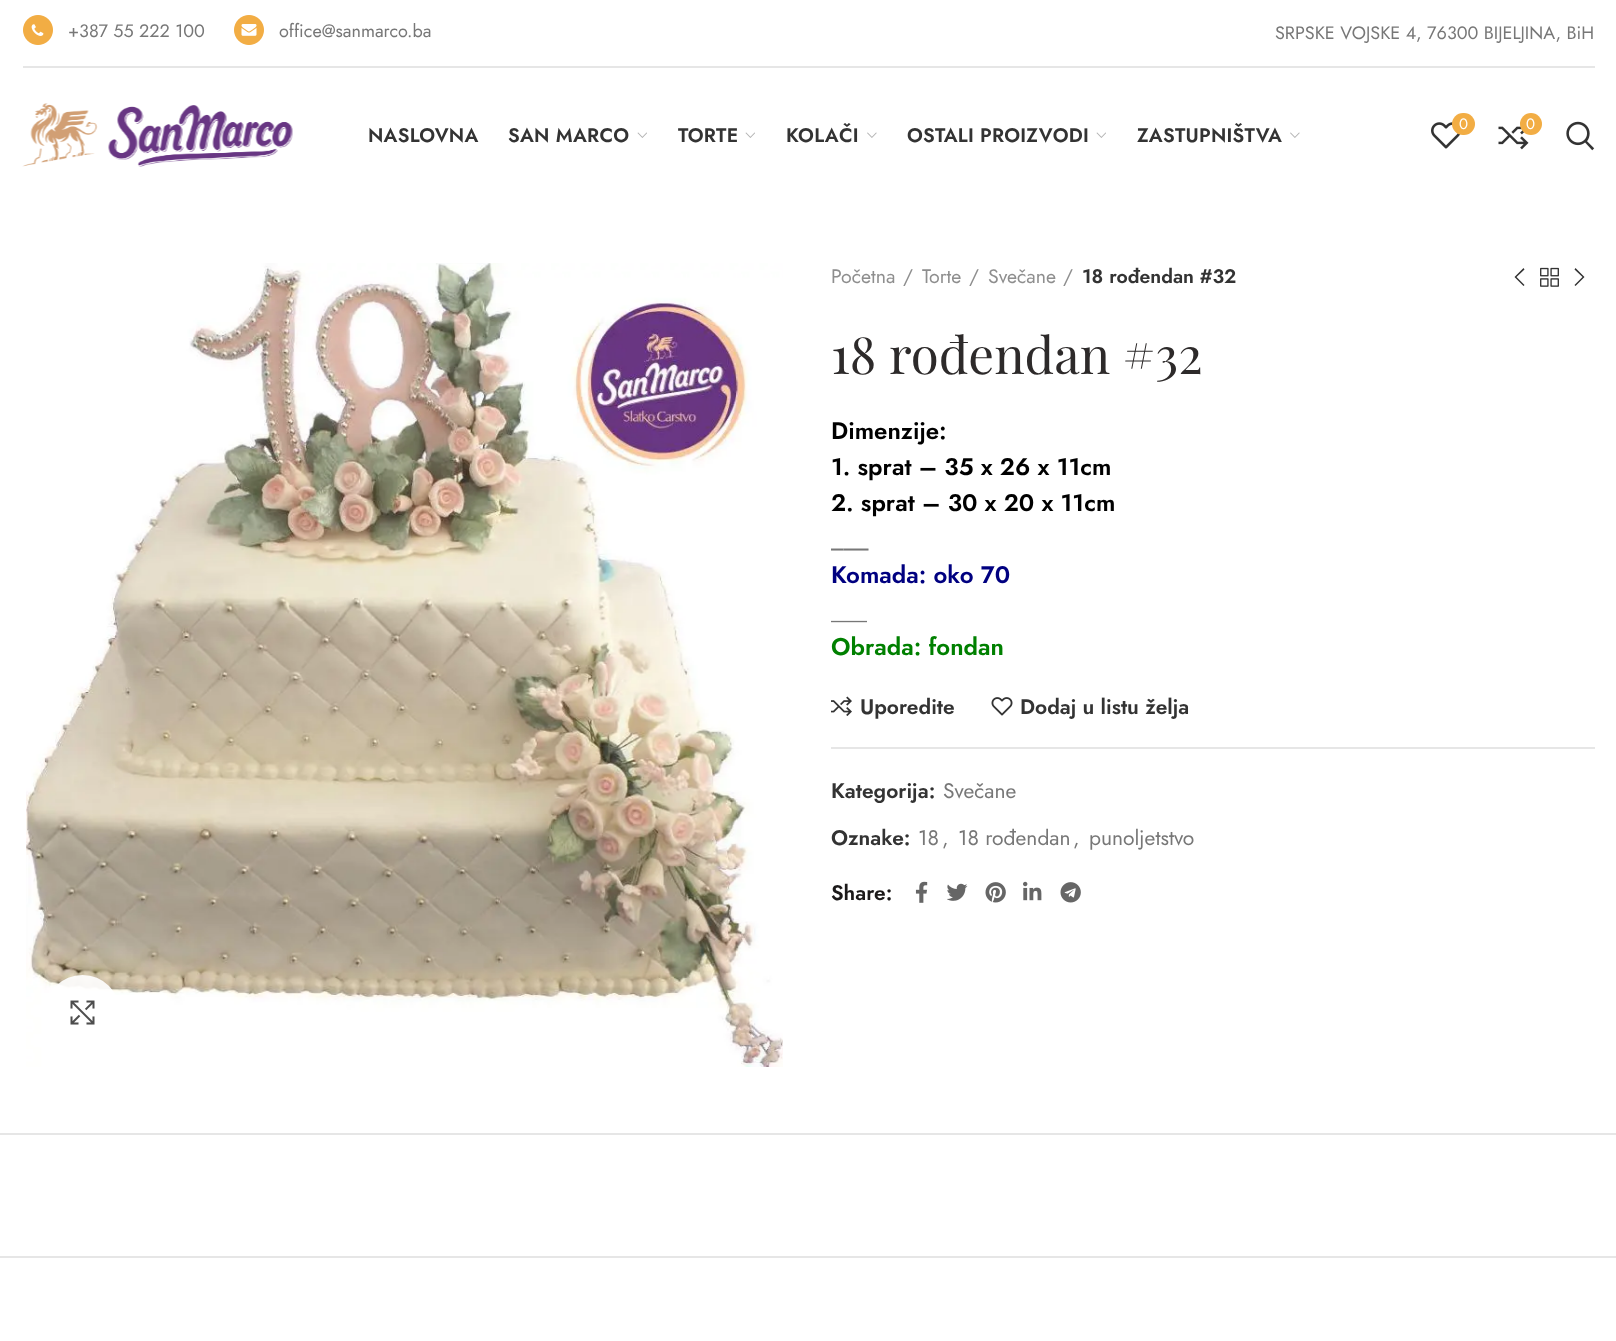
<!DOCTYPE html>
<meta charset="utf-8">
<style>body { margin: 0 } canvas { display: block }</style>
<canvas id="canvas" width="1616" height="1341"></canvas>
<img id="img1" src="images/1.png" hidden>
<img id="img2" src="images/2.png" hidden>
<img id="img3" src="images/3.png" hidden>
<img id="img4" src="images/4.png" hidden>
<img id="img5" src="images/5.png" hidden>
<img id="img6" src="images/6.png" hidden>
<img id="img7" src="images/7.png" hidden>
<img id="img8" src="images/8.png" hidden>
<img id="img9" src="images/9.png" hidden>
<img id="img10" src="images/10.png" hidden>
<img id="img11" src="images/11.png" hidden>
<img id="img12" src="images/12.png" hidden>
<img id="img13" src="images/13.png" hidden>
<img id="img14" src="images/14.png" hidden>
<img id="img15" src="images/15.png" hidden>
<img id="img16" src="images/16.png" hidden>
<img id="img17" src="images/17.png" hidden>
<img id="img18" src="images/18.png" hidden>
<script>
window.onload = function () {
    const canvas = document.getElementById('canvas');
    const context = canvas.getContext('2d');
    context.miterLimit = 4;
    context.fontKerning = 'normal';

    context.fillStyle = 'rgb(255, 255, 255)';
    context.fillRect(0, 0, 1616, 1341);
    context.fillStyle = 'rgb(230, 230, 230)';
    context.fillRect(23, 66, 1572, 2);
    context.drawImage(document.getElementById('img1'), 23, 15, 30, 30);
    context.drawImage(document.getElementById('img2'), 234, 15, 30, 30);
    context.drawImage(document.getElementById('img3'), 22, 103, 271, 64);
    context.drawImage(document.getElementById('img4'), 637, 132, 10, 6);
    context.drawImage(document.getElementById('img4'), 745, 132, 10, 6);
    context.drawImage(document.getElementById('img5'), 867, 132, 10, 6);
    context.drawImage(document.getElementById('img4'), 1096, 132, 10, 6);
    context.drawImage(document.getElementById('img5'), 1290, 132, 10, 6);
    context.drawImage(document.getElementById('img6'), 1431, 122, 30, 27);
    context.fillStyle = 'rgb(242, 173, 68)';
    context.beginPath();
    context.roundRect(1452, 113, 23, 22, 11);
    context.fill();
    context.drawImage(document.getElementById('img7'), 1498, 122, 31, 28);
    context.beginPath();
    context.arc(1531, 124, 11, 0, 2 * Math.PI);
    context.fill();
    context.drawImage(document.getElementById('img8'), 1566, 121, 29, 30);
    context.drawImage(document.getElementById('img9'), 26, 263, 757, 804);
    context.fillStyle = 'rgba(255, 255, 255, 0.9)';
    context.beginPath();
    context.arc(82.5, 1012.5, 37.5, 0, 2 * Math.PI);
    context.fill();
    context.drawImage(document.getElementById('img10'), 70, 1000, 25, 25);
    context.fillStyle = 'rgb(51, 51, 51)';
    context.beginPath();
    context.moveTo(1524.5, 269.5);
    context.lineTo(1516.5, 277);
    context.lineTo(1524.5, 285);
    context.lineTo(1523.5, 286);
    context.lineTo(1514.5, 277);
    context.lineTo(1523.5, 268);
    context.closePath();
    context.fill();
    context.drawImage(document.getElementById('img11'), 1540, 267, 19, 20);
    context.beginPath();
    context.moveTo(1575.5, 268);
    context.lineTo(1584.5, 277);
    context.lineTo(1575.5, 286);
    context.lineTo(1574.5, 285);
    context.lineTo(1582.5, 277);
    context.lineTo(1574.5, 269.5);
    context.closePath();
    context.fill();
    context.drawImage(document.getElementById('img12'), 831, 696, 21, 20);
    context.drawImage(document.getElementById('img13'), 991, 697, 22, 19);
    context.fillStyle = 'rgb(230, 230, 230)';
    context.fillRect(831, 747, 764, 2);
    context.drawImage(document.getElementById('img14'), 915, 881, 13, 22);
    context.drawImage(document.getElementById('img15'), 947, 883, 21, 18);
    context.drawImage(document.getElementById('img16'), 985, 882, 21, 21);
    context.drawImage(document.getElementById('img17'), 1023, 881, 19, 20);
    context.drawImage(document.getElementById('img18'), 1060, 882, 21, 21);
    context.fillRect(0, 1133, 1616, 2);
    context.fillRect(0, 1256, 1616, 2);
    context.font = '18px Jost';
    context.fillStyle = 'rgb(119, 119, 119)';
    context.fillText('+387 55 222 100', 68, 37);
    context.fillText('office@sanmarco.ba', 279, 37);
    context.fillText('SRPSKE VOJSKE 4, 76300 BIJELJINA, BiH', 1275, 39);
    context.letterSpacing = '0.25px';
    context.font = '600 19.5px Jost';
    context.fillStyle = 'rgb(51, 51, 51)';
    context.fillText('NASLOVNA', 368, 142);
    context.fillText('SAN MARCO', 508, 142);
    context.fillText('TORTE', 678, 142);
    context.fillText('KOLAČI', 786, 142);
    context.fillText('OSTALI PROIZVODI', 907, 142);
    context.fillText('ZASTUPNIŠTVA', 1137, 142);
    context.letterSpacing = '0px';
    context.font = '15px Jost';
    context.fillStyle = 'rgb(255, 255, 255)';
    context.fillText('0', 1459, 129);
    context.fillText('0', 1526, 129);
    context.font = '19.5px Jost';
    context.fillStyle = 'rgb(142, 142, 142)';
    context.fillText('Početna', 831, 283);
    context.fillText('/', 903, 283);
    context.fillText('Torte', 922, 283);
    context.fillText('/', 969, 283);
    context.fillText('Svečane', 988, 283);
    context.fillText('/', 1063, 283);
    context.font = '600 19.5px Jost';
    context.fillStyle = 'rgb(51, 51, 51)';
    context.fillText('18 rođendan #32', 1082, 283);
    context.font = '51px Playfair Display';
    context.fillStyle = 'rgb(45, 42, 42)';
    context.fillText('18 rođendan #32', 831, 374);
    context.font = '600 24px Jost';
    context.fillStyle = 'rgb(0, 0, 0)';
    context.fillText('Dimenzije:', 831, 439);
    context.fillText('1. sprat – 35 x 26 x 11cm', 831, 475);
    context.fillText('2. sprat – 30 x 20 x 11cm', 831, 511);
    context.fillStyle = 'rgb(119, 119, 119)';
    context.fillText('___', 831, 547);
    context.fillStyle = 'rgb(0, 0, 128)';
    context.fillText('Komada: oko 70', 831, 583);
    context.font = '24px Jost';
    context.fillStyle = 'rgb(119, 119, 119)';
    context.fillText('___', 831, 619);
    context.font = '600 24px Jost';
    context.fillStyle = 'rgb(0, 128, 0)';
    context.fillText('Obrada: fondan', 831, 655);
    context.font = '600 21px Jost';
    context.fillStyle = 'rgb(51, 51, 51)';
    context.fillText('Uporedite', 860, 714);
    context.fillText('Dodaj u listu želja', 1020, 714);
    context.fillText('Kategorija:', 831, 798);
    context.font = '21px Jost';
    context.fillStyle = 'rgb(119, 119, 119)';
    context.fillText('Svečane', 943, 798);
    context.font = '600 21px Jost';
    context.fillStyle = 'rgb(51, 51, 51)';
    context.fillText('Oznake:', 831, 845);
    context.font = '21px Jost';
    context.fillStyle = 'rgb(119, 119, 119)';
    context.fillText('18', 918, 845);
    context.fillText(',', 942, 845);
    context.fillText('18 rođendan', 958, 845);
    context.fillText(',', 1073, 845);
    context.fillText('punoljetstvo', 1089, 845);
    context.font = '600 21px Jost';
    context.fillStyle = 'rgb(27, 25, 25)';
    context.fillText('Share:', 831, 900);
};
</script>
